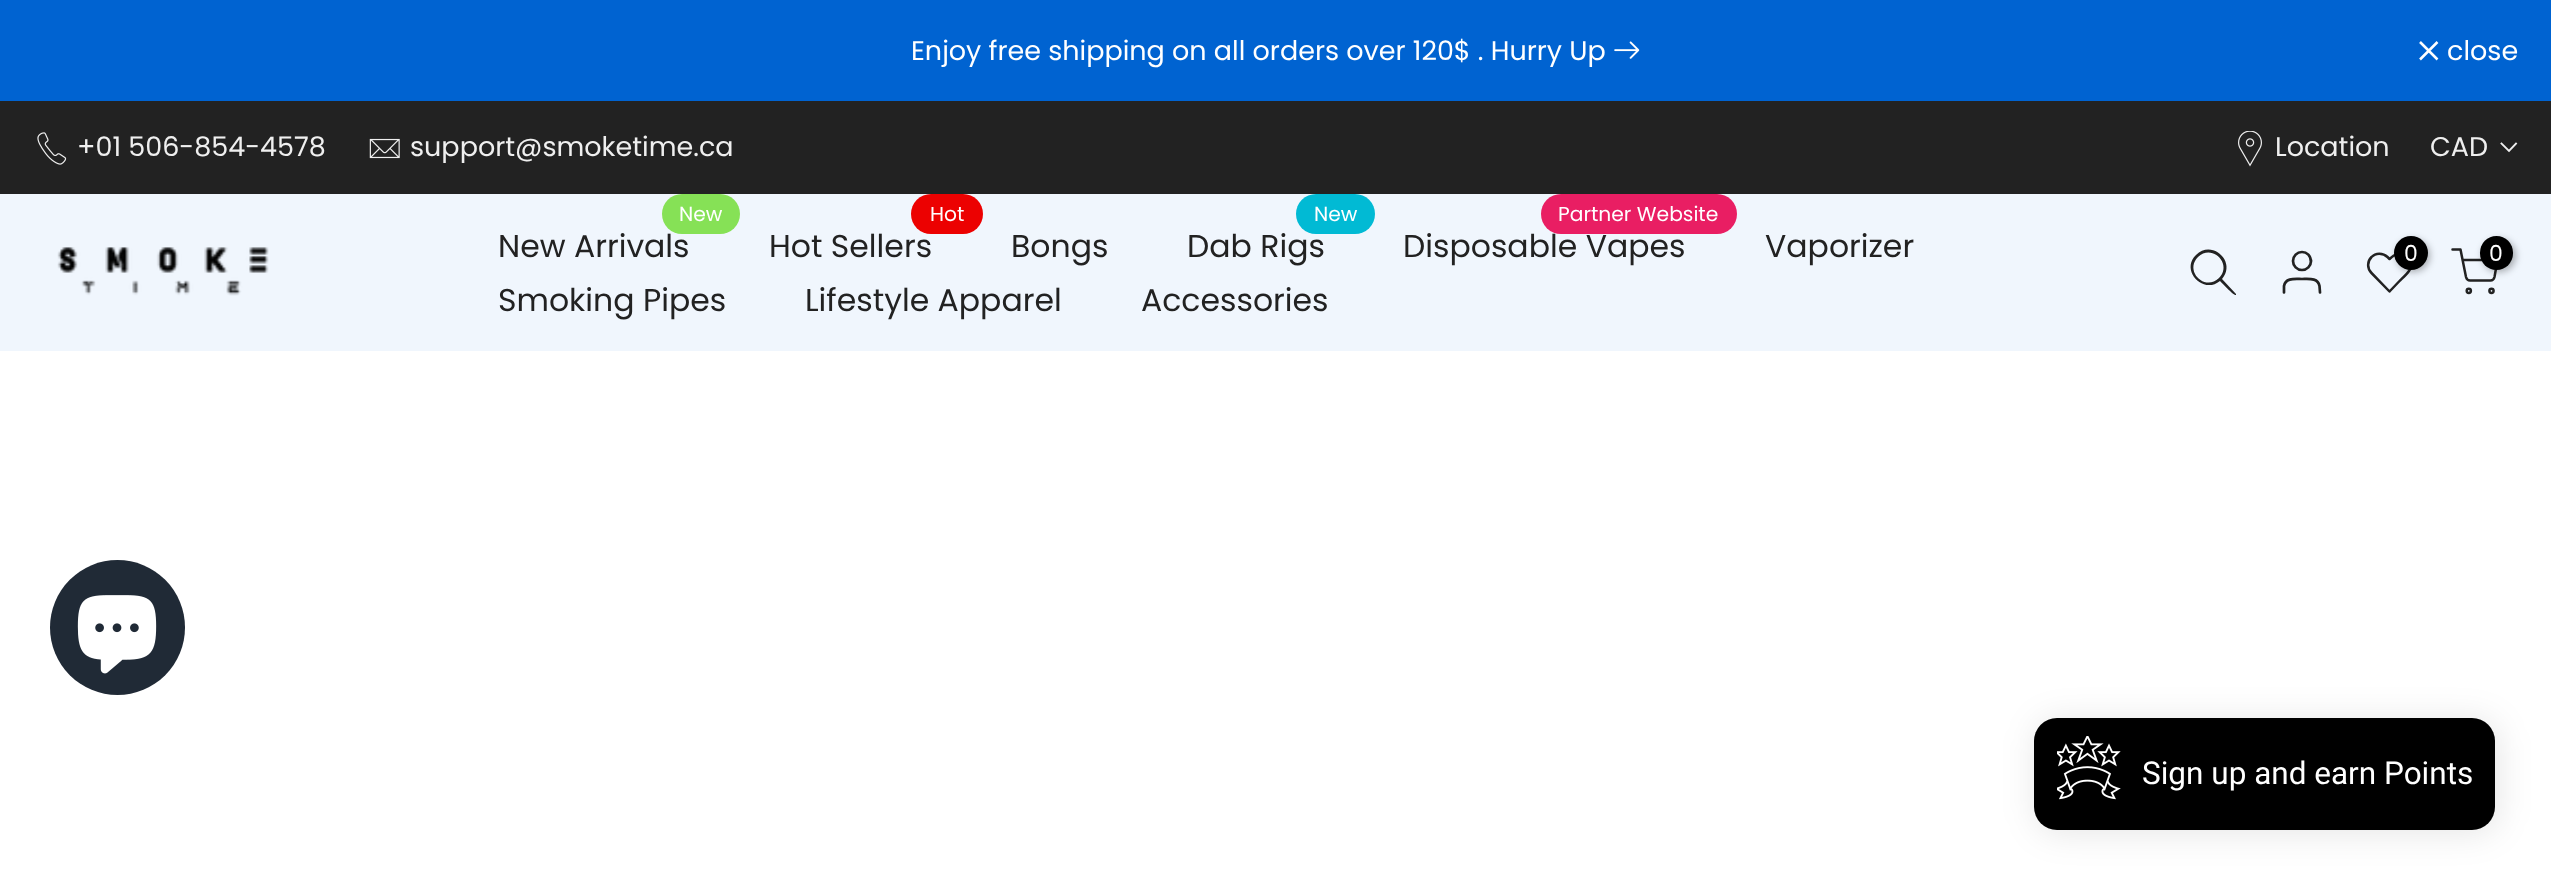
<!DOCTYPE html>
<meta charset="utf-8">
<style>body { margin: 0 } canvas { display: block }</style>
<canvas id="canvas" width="2551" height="885"></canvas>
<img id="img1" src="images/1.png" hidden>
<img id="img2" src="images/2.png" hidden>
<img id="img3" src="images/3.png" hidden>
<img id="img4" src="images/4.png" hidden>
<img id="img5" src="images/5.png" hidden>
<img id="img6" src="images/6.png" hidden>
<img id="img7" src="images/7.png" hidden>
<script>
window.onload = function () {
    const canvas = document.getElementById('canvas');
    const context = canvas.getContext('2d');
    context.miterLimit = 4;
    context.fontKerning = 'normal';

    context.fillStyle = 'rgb(255, 255, 255)';
    context.fillRect(0, 0, 2551, 885);
    context.fillStyle = 'rgb(0, 99, 209)';
    context.fillRect(0, 0, 2551, 101);
    context.drawImage(document.getElementById('img1'), 1614, 41, 26, 18);
    context.beginPath();
    context.moveTo(2437.5, 42);
    context.lineTo(2420, 59.5);
    context.moveTo(2437.5, 59.5);
    context.lineTo(2420, 42);
    context.strokeStyle = 'rgb(255, 255, 255)';
    context.lineWidth = 2.5;
    context.stroke();
    context.fillStyle = 'rgb(34, 34, 34)';
    context.fillRect(0, 101, 2551, 93);
    context.drawImage(document.getElementById('img2'), 37, 132, 30, 33);
    context.drawImage(document.getElementById('img3'), 369, 138, 31, 21);
    context.drawImage(document.getElementById('img4'), 2238, 131, 24, 36);
    context.beginPath();
    context.moveTo(2516, 143.5);
    context.lineTo(2509, 151);
    context.lineTo(2501.5, 143.5);
    context.strokeStyle = 'rgb(239, 239, 239)';
    context.lineWidth = 1.9;
    context.lineCap = 'square';
    context.stroke();
    context.fillStyle = 'rgb(240, 246, 253)';
    context.fillRect(0, 194, 2551, 157);
    context.drawImage(document.getElementById('img5'), 57, 247, 212, 49);
    context.fillStyle = 'rgb(34, 34, 34)';
    context.beginPath();
    context.moveTo(2219, 278);
    context.bezierCurveTo(2205, 292, 2184, 271, 2198, 257);
    context.bezierCurveTo(2212, 243, 2233, 264, 2219, 278);
    context.closePath();
    context.moveTo(2220, 281);
    context.bezierCurveTo(2203, 295, 2180, 270, 2196, 255);
    context.bezierCurveTo(2212, 239, 2237, 262, 2222, 279);
    context.lineTo(2236, 294);
    context.lineTo(2236, 295);
    context.bezierCurveTo(2234, 296, 2222, 283, 2220, 281);
    context.closePath();
    context.fill('evenodd');
    context.beginPath();
    context.arc(2302, 261, 9, 0, 2 * Math.PI);
    context.strokeStyle = 'rgb(34, 34, 34)';
    context.lineWidth = 2.7;
    context.stroke();
    context.beginPath();
    context.moveTo(2320, 292.5);
    context.lineTo(2319.5, 286);
    context.bezierCurveTo(2318, 277.5, 2308.5, 279, 2302, 279);
    context.bezierCurveTo(2295, 279, 2285.5, 277.5, 2284, 286);
    context.lineTo(2284, 292.5);
    context.lineCap = 'round';
    context.lineJoin = 'round';
    context.stroke();
    context.beginPath();
    context.moveTo(2407.5, 257);
    context.bezierCurveTo(2401.5, 251, 2394.5, 254, 2389.5, 259);
    context.lineTo(2387.5, 257);
    context.bezierCurveTo(2383, 252.5, 2375.5, 252.5, 2371.5, 257);
    context.bezierCurveTo(2367, 261.5, 2367, 268.5, 2371.5, 273);
    context.lineTo(2389.5, 291.5);
    context.lineTo(2400, 280.5);
    context.bezierCurveTo(2406.5, 274.5, 2417, 266, 2407.5, 257);
    context.closePath();
    context.lineWidth = 2.5;
    context.stroke();
    context.fillStyle = 'rgba(0, 0, 0, 0.3)';
    context.filter = 'blur(3.5px)';
    context.beginPath();
    context.roundRect(2396, 239, 34, 33, 16.5);
    context.fill();
    context.filter = 'none';
    context.fillStyle = 'rgb(0, 0, 0)';
    context.beginPath();
    context.arc(2411, 253, 17, 0, 2 * Math.PI);
    context.fill();
    context.beginPath();
    context.moveTo(2452.5, 249.5);
    context.lineTo(2460.5, 249.5);
    context.lineTo(2466, 277);
    context.bezierCurveTo(2466.5, 279, 2468, 280.5, 2470, 280.5);
    context.lineTo(2490.5, 280.5);
    context.bezierCurveTo(2492.5, 280.5, 2494, 279, 2494.5, 277);
    context.lineTo(2497.5, 260);
    context.lineTo(2462.5, 260);
    context.stroke();
    context.fillStyle = 'rgba(0, 0, 0, 0.3)';
    context.filter = 'blur(3.5px)';
    context.beginPath();
    context.roundRect(2482, 239, 34, 33, 16.5);
    context.fill();
    context.filter = 'none';
    context.fillStyle = 'rgb(0, 0, 0)';
    context.beginPath();
    context.roundRect(2480, 236, 33, 34, 16.5);
    context.fill();
    context.beginPath();
    context.arc(2468.8, 290.8, 2.1, 0, 2 * Math.PI);
    context.stroke();
    context.beginPath();
    context.arc(2491.5, 290.8, 2.1, 0, 2 * Math.PI);
    context.stroke();
    context.fillStyle = 'rgb(32, 42, 54)';
    context.beginPath();
    context.arc(117.5, 627.5, 67.5, 0, 2 * Math.PI);
    context.fill();
    context.drawImage(document.getElementById('img6'), 77, 595, 80, 79);
    context.fillStyle = 'rgba(0, 0, 0, 0.1)';
    context.filter = 'blur(17px)';
    context.beginPath();
    context.roundRect(2036, 720, 462, 113, 23);
    context.fill();
    context.filter = 'none';
    context.fillStyle = 'rgb(0, 0, 0)';
    context.beginPath();
    context.roundRect(2034, 718, 461, 112, 23);
    context.fill();
    context.drawImage(document.getElementById('img7'), 2057, 736, 64, 64);
    context.font = '27px Poppins';
    context.fillStyle = 'rgb(255, 255, 255)';
    context.fillText('Enjoy free shipping on all orders over 120$ . Hurry Up', 911, 60);
    context.fillText('close', 2447, 60);
    context.fillStyle = 'rgb(239, 239, 239)';
    context.fillText('+01 506-854-4578', 77, 156);
    context.fillText('support@smoketime.ca', 410, 156);
    context.fillText('Location', 2275, 156);
    context.fillText('CAD', 2430, 156);
    context.font = '31.5px Poppins';
    context.fillStyle = 'rgb(34, 34, 34)';
    context.fillText('New Arrivals', 498, 257);
    context.fillStyle = 'rgb(134, 225, 86)';
    context.beginPath();
    context.roundRect(662, 194, 78, 40, 20);
    context.fill();
    context.font = '20.25px Poppins';
    context.fillStyle = 'rgb(255, 255, 255)';
    context.fillText('New', 679, 221);
    context.font = '31.5px Poppins';
    context.fillStyle = 'rgb(34, 34, 34)';
    context.fillText('Hot Sellers', 769, 257);
    context.fillStyle = 'rgb(236, 1, 1)';
    context.beginPath();
    context.roundRect(911, 194, 72, 40, 20);
    context.fill();
    context.font = '20.25px Poppins';
    context.fillStyle = 'rgb(255, 255, 255)';
    context.fillText('Hot', 930, 221);
    context.font = '31.5px Poppins';
    context.fillStyle = 'rgb(34, 34, 34)';
    context.fillText('Bongs', 1011, 257);
    context.fillText('Dab Rigs', 1187, 257);
    context.fillStyle = 'rgb(1, 186, 212)';
    context.beginPath();
    context.roundRect(1296, 194, 79, 40, 20);
    context.fill();
    context.font = '20.25px Poppins';
    context.fillStyle = 'rgb(255, 255, 255)';
    context.fillText('New', 1314, 221);
    context.font = '31.5px Poppins';
    context.fillStyle = 'rgb(34, 34, 34)';
    context.fillText('Disposable Vapes', 1403, 257);
    context.fillStyle = 'rgb(233, 30, 99)';
    context.beginPath();
    context.roundRect(1541, 194, 196, 40, 20);
    context.fill();
    context.font = '20.25px Poppins';
    context.fillStyle = 'rgb(255, 255, 255)';
    context.fillText('Partner Website', 1558, 221);
    context.font = '31.5px Poppins';
    context.fillStyle = 'rgb(34, 34, 34)';
    context.fillText('Vaporizer', 1765, 257);
    context.fillText('Smoking Pipes', 498, 311);
    context.fillText('Lifestyle Apparel', 805, 311);
    context.fillText('Accessories', 1141, 311);
    context.font = '22px Poppins';
    context.fillStyle = 'rgb(255, 255, 255)';
    context.fillText('0', 2404, 261);
    context.fillText('0', 2489, 261);
    context.font = '31.5px Roboto';
    context.fillText('Sign up and earn Points', 2142, 784);
};
</script>
